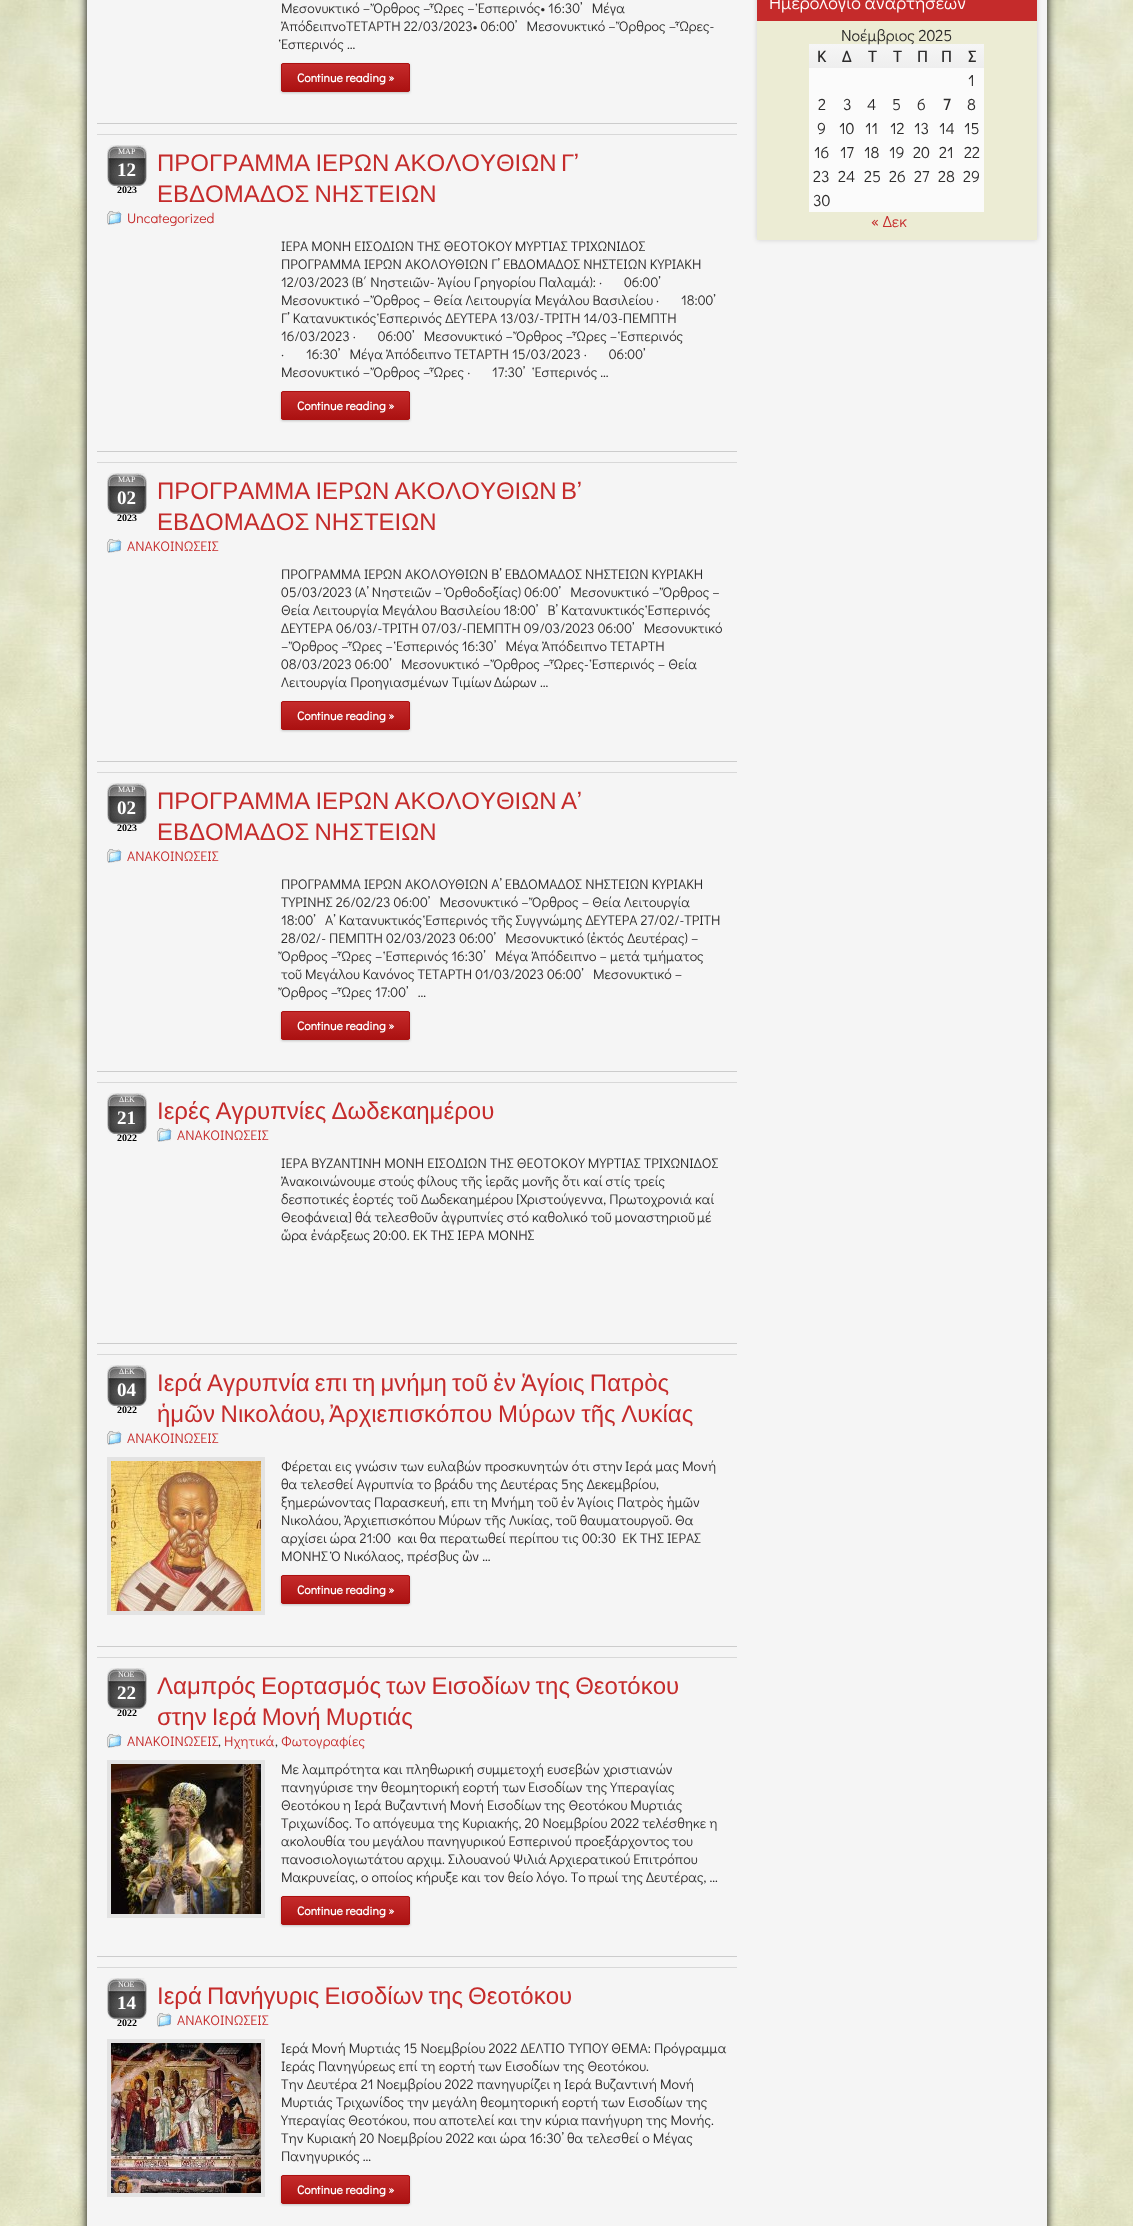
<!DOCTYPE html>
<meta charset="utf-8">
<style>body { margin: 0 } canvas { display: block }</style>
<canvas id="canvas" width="1133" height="2226"></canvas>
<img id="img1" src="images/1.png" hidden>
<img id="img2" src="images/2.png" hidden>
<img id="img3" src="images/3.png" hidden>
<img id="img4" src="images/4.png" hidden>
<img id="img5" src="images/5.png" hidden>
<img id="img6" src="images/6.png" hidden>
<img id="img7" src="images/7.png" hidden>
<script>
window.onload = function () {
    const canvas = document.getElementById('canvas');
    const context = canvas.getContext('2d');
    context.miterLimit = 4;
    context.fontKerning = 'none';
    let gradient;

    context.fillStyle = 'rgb(255, 255, 255)';
    context.fillRect(0, 0, 1133, 2226);
    context.drawImage(document.getElementById('img1'), 0, 0, 1133, 2226);
    context.fillStyle = 'rgb(0, 0, 0)';
    context.filter = 'blur(5px)';
    context.beginPath();
    context.rect(87, -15, 960, 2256);
    context.fill();
    context.filter = 'none';
    context.fillStyle = 'rgb(245, 245, 245)';
    context.fillRect(87, 0, 960, 2226);
    context.fillStyle = 'rgb(204, 204, 204)';
    context.fillRect(97, 123, 640, 1);
    context.fillStyle = 'rgb(194, 194, 194)';
    context.filter = 'blur(1px)';
    context.beginPath();
    context.roundRect(281, 64, 129, 29, 2);
    context.fill();
    context.filter = 'none';
    context.save();
    context.beginPath();
    context.roundRect(281, 63, 129, 29, 2);
    context.clip();
    gradient = context.createLinearGradient(346, 64, 346, 91);
    gradient.addColorStop(0, 'rgb(197, 43, 43)');
    gradient.addColorStop(1, 'rgb(171, 17, 17)');
    context.fillStyle = gradient;
    context.fillRect(281, 64, 129, 27);
    context.restore();
    context.beginPath();
    context.roundRect(281.5, 63.5, 128, 28, 1.5);
    context.strokeStyle = 'rgb(171, 17, 17)';
    context.stroke();
    context.fillStyle = 'rgb(216, 216, 216)';
    context.fillRect(97, 134, 640, 1);
    context.fillStyle = 'rgb(204, 204, 204)';
    context.fillRect(97, 451, 640, 1);
    context.drawImage(document.getElementById('img2'), 107, 145, 40, 41);
    context.drawImage(document.getElementById('img3'), 107, 211, 15, 14);
    context.fillStyle = 'rgb(194, 194, 194)';
    context.filter = 'blur(1px)';
    context.beginPath();
    context.roundRect(281, 392, 129, 29, 2);
    context.fill();
    context.filter = 'none';
    context.save();
    context.beginPath();
    context.roundRect(281, 391, 129, 29, 2);
    context.clip();
    gradient = context.createLinearGradient(346, 392, 346, 419);
    gradient.addColorStop(0, 'rgb(197, 43, 43)');
    gradient.addColorStop(1, 'rgb(171, 17, 17)');
    context.fillStyle = gradient;
    context.fillRect(281, 392, 129, 27);
    context.restore();
    context.beginPath();
    context.roundRect(281.5, 391.5, 128, 28, 1.5);
    context.stroke();
    context.fillStyle = 'rgb(216, 216, 216)';
    context.fillRect(97, 462, 640, 1);
    context.fillStyle = 'rgb(204, 204, 204)';
    context.fillRect(97, 761, 640, 1);
    context.drawImage(document.getElementById('img2'), 107, 473, 40, 41);
    context.drawImage(document.getElementById('img4'), 107, 539, 15, 14);
    context.fillStyle = 'rgb(194, 194, 194)';
    context.filter = 'blur(1px)';
    context.beginPath();
    context.roundRect(281, 702, 129, 29, 2);
    context.fill();
    context.filter = 'none';
    context.save();
    context.beginPath();
    context.roundRect(281, 701, 129, 29, 2);
    context.clip();
    gradient = context.createLinearGradient(346, 702, 346, 729);
    gradient.addColorStop(0, 'rgb(197, 43, 43)');
    gradient.addColorStop(1, 'rgb(171, 17, 17)');
    context.fillStyle = gradient;
    context.fillRect(281, 702, 129, 27);
    context.restore();
    context.beginPath();
    context.roundRect(281.5, 701.5, 128, 28, 1.5);
    context.stroke();
    context.fillStyle = 'rgb(216, 216, 216)';
    context.fillRect(97, 772, 640, 1);
    context.fillStyle = 'rgb(204, 204, 204)';
    context.fillRect(97, 1071, 640, 1);
    context.drawImage(document.getElementById('img2'), 107, 783, 40, 41);
    context.drawImage(document.getElementById('img4'), 107, 849, 15, 14);
    context.fillStyle = 'rgb(194, 194, 194)';
    context.filter = 'blur(1px)';
    context.beginPath();
    context.roundRect(281, 1012, 129, 29, 2);
    context.fill();
    context.filter = 'none';
    context.save();
    context.beginPath();
    context.roundRect(281, 1011, 129, 29, 2);
    context.clip();
    gradient = context.createLinearGradient(346, 1012, 346, 1039);
    gradient.addColorStop(0, 'rgb(197, 43, 43)');
    gradient.addColorStop(1, 'rgb(171, 17, 17)');
    context.fillStyle = gradient;
    context.fillRect(281, 1012, 129, 27);
    context.restore();
    context.beginPath();
    context.roundRect(281.5, 1011.5, 128, 28, 1.5);
    context.stroke();
    context.fillStyle = 'rgb(216, 216, 216)';
    context.fillRect(97, 1082, 640, 1);
    context.fillStyle = 'rgb(204, 204, 204)';
    context.fillRect(97, 1343, 640, 1);
    context.drawImage(document.getElementById('img2'), 107, 1093, 40, 41);
    context.drawImage(document.getElementById('img4'), 157, 1128, 15, 14);
    context.fillStyle = 'rgb(216, 216, 216)';
    context.fillRect(97, 1354, 640, 1);
    context.fillStyle = 'rgb(204, 204, 204)';
    context.fillRect(97, 1646, 640, 1);
    context.drawImage(document.getElementById('img2'), 107, 1365, 40, 41);
    context.drawImage(document.getElementById('img4'), 107, 1431, 15, 14);
    context.strokeStyle = 'rgb(227, 227, 227)';
    context.lineWidth = 4;
    context.strokeRect(109, 1459, 154, 154);
    context.drawImage(document.getElementById('img5'), 111, 1461, 150, 150);
    context.fillStyle = 'rgb(194, 194, 194)';
    context.filter = 'blur(1px)';
    context.beginPath();
    context.roundRect(281, 1576, 129, 29, 2);
    context.fill();
    context.filter = 'none';
    context.save();
    context.beginPath();
    context.roundRect(281, 1575, 129, 29, 2);
    context.clip();
    gradient = context.createLinearGradient(346, 1576, 346, 1603);
    gradient.addColorStop(0, 'rgb(197, 43, 43)');
    gradient.addColorStop(1, 'rgb(171, 17, 17)');
    context.fillStyle = gradient;
    context.fillRect(281, 1576, 129, 27);
    context.restore();
    context.beginPath();
    context.roundRect(281.5, 1575.5, 128, 28, 1.5);
    context.strokeStyle = 'rgb(171, 17, 17)';
    context.lineWidth = 1;
    context.stroke();
    context.fillStyle = 'rgb(216, 216, 216)';
    context.fillRect(97, 1657, 640, 1);
    context.fillStyle = 'rgb(204, 204, 204)';
    context.fillRect(97, 1956, 640, 1);
    context.drawImage(document.getElementById('img2'), 107, 1668, 40, 41);
    context.drawImage(document.getElementById('img3'), 107, 1734, 15, 14);
    context.strokeStyle = 'rgb(227, 227, 227)';
    context.lineWidth = 4;
    context.strokeRect(109, 1762, 154, 154);
    context.drawImage(document.getElementById('img6'), 111, 1764, 150, 150);
    context.fillStyle = 'rgb(194, 194, 194)';
    context.filter = 'blur(1px)';
    context.beginPath();
    context.roundRect(281, 1897, 129, 29, 2);
    context.fill();
    context.filter = 'none';
    context.save();
    context.beginPath();
    context.roundRect(281, 1896, 129, 29, 2);
    context.clip();
    gradient = context.createLinearGradient(346, 1897, 346, 1924);
    gradient.addColorStop(0, 'rgb(197, 43, 43)');
    gradient.addColorStop(1, 'rgb(171, 17, 17)');
    context.fillStyle = gradient;
    context.fillRect(281, 1897, 129, 27);
    context.restore();
    context.beginPath();
    context.roundRect(281.5, 1896.5, 128, 28, 1.5);
    context.strokeStyle = 'rgb(171, 17, 17)';
    context.lineWidth = 1;
    context.stroke();
    context.fillStyle = 'rgb(216, 216, 216)';
    context.fillRect(97, 1967, 640, 1);
    context.drawImage(document.getElementById('img2'), 107, 1978, 40, 41);
    context.drawImage(document.getElementById('img4'), 157, 2013, 15, 14);
    context.strokeStyle = 'rgb(227, 227, 227)';
    context.lineWidth = 4;
    context.strokeRect(109, 2041, 154, 154);
    context.drawImage(document.getElementById('img7'), 111, 2043, 150, 150);
    context.fillStyle = 'rgb(194, 194, 194)';
    context.filter = 'blur(1px)';
    context.beginPath();
    context.roundRect(281, 2176, 129, 29, 2);
    context.fill();
    context.filter = 'none';
    context.save();
    context.beginPath();
    context.roundRect(281, 2175, 129, 29, 2);
    context.clip();
    gradient = context.createLinearGradient(346, 2176, 346, 2203);
    gradient.addColorStop(0, 'rgb(197, 43, 43)');
    gradient.addColorStop(1, 'rgb(171, 17, 17)');
    context.fillStyle = gradient;
    context.fillRect(281, 2176, 129, 27);
    context.restore();
    context.beginPath();
    context.roundRect(281.5, 2175.5, 128, 28, 1.5);
    context.strokeStyle = 'rgb(171, 17, 17)';
    context.lineWidth = 1;
    context.stroke();
    context.fillStyle = 'rgba(0, 0, 0, 0.15)';
    context.filter = 'blur(2.5px)';
    context.beginPath();
    context.rect(757, -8, 280, 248);
    context.fill();
    context.filter = 'none';
    context.fillStyle = 'rgb(236, 236, 212)';
    context.fillRect(757, 21, 280, 219);
    context.fillStyle = 'rgb(197, 43, 43)';
    context.fillRect(757, 0, 280, 21);
    gradient = context.createLinearGradient(822, 44, 822, 68);
    gradient.addColorStop(0, 'rgb(246, 246, 246)');
    gradient.addColorStop(1, 'rgb(238, 238, 238)');
    context.fillStyle = gradient;
    context.fillRect(809, 44, 25, 24);
    gradient = context.createLinearGradient(847, 44, 847, 68);
    gradient.addColorStop(0, 'rgb(246, 246, 246)');
    gradient.addColorStop(1, 'rgb(238, 238, 238)');
    context.fillStyle = gradient;
    context.fillRect(834, 44, 26, 24);
    gradient = context.createLinearGradient(873, 44, 873, 68);
    gradient.addColorStop(0, 'rgb(246, 246, 246)');
    gradient.addColorStop(1, 'rgb(238, 238, 238)');
    context.fillStyle = gradient;
    context.fillRect(860, 44, 25, 24);
    gradient = context.createLinearGradient(897, 44, 897, 68);
    gradient.addColorStop(0, 'rgb(246, 246, 246)');
    gradient.addColorStop(1, 'rgb(238, 238, 238)');
    context.fillStyle = gradient;
    context.fillRect(885, 44, 24, 24);
    gradient = context.createLinearGradient(922, 44, 922, 68);
    gradient.addColorStop(0, 'rgb(246, 246, 246)');
    gradient.addColorStop(1, 'rgb(238, 238, 238)');
    context.fillStyle = gradient;
    context.fillRect(909, 44, 25, 24);
    gradient = context.createLinearGradient(947, 44, 947, 68);
    gradient.addColorStop(0, 'rgb(246, 246, 246)');
    gradient.addColorStop(1, 'rgb(238, 238, 238)');
    context.fillStyle = gradient;
    context.fillRect(934, 44, 25, 24);
    gradient = context.createLinearGradient(972, 44, 972, 68);
    gradient.addColorStop(0, 'rgb(246, 246, 246)');
    gradient.addColorStop(1, 'rgb(238, 238, 238)');
    context.fillStyle = gradient;
    context.fillRect(959, 44, 25, 24);
    context.fillStyle = 'rgb(251, 251, 251)';
    context.fillRect(809, 68, 175, 144);
    context.font = '14px Didact Gothic';
    context.fillStyle = 'rgb(44, 43, 43)';
    context.fillText('Μεσονυκτικό – Ὄρθρος – Ὧρες – Ἑσπερινός• 16:30’   Μέγα', 281, 13);
    context.fillText('ἈπόδειπνοΤΕΤΑΡΤΗ 22/03/2023• 06:00’   Μεσονυκτικό – Ὄρθρος – Ὧρες-', 281, 31);
    context.fillText('Ἑσπερινός …', 281, 49);
    context.font = 'bold 12px Didact Gothic';
    context.fillStyle = 'rgb(255, 255, 255)';
    context.fillText('Continue reading »', 297, 82);
    context.font = '8px Liberation Serif';
    context.fillText('ΜΑΡ', 118, 154);
    context.font = 'bold 19px Liberation Serif';
    context.fillText('12', 117, 176);
    context.font = 'bold 10px Liberation Serif';
    context.fillStyle = 'rgb(0, 0, 0)';
    context.fillText('2023', 117, 193);
    context.wordSpacing = '-1.5px';
    context.font = '24px Liberation Sans';
    context.fillStyle = 'rgb(197, 43, 43)';
    context.fillText('ΠΡΟΓΡΑΜΜΑ ΙΕΡΩΝ ΑΚΟΛΟΥΘΙΩΝ', 157, 171);
    context.fillText('Γ', 561, 171);
    context.wordSpacing = '0px';
    context.font = '24px Pontano Sans';
    context.fillText('’', 574, 171);
    context.wordSpacing = '-1.5px';
    context.font = '24px Liberation Sans';
    context.fillText('ΕΒΔΟΜΑΔΟΣ ΝΗΣΤΕΙΩΝ', 157, 202);
    context.wordSpacing = '0px';
    context.font = '14px Didact Gothic';
    context.fillText('Uncategorized', 127, 223);
    context.fillStyle = 'rgb(44, 43, 43)';
    context.fillText('ΙΕΡΑ ΜΟΝΗ ΕΙΣΟΔΙΩΝ ΤΗΣ ΘΕΟΤΟΚΟΥ ΜΥΡΤΙΑΣ ΤΡΙΧΩΝΙΔΟΣ', 281, 251);
    context.fillText('ΠΡΟΓΡΑΜΜΑ ΙΕΡΩΝ ΑΚΟΛΟΥΘΙΩΝ Γ’ ΕΒΔΟΜΑΔΟΣ ΝΗΣΤΕΙΩΝ ΚΥΡΙΑΚΗ', 281, 269);
    context.fillText('12/03/2023 (Β΄ Νηστειῶν- Ἁγίου Γρηγορίου Παλαμά): ·       06:00’', 281, 287);
    context.fillText('Μεσονυκτικό – Ὄρθρος – Θεία Λειτουργία Μεγάλου Βασιλείου ·       18:00’', 281, 305);
    context.fillText('Γ’ Κατανυκτικός Ἑσπερινός ΔΕΥΤΕΡΑ 13/03/-ΤΡΙΤΗ 14/03-ΠΕΜΠΤΗ', 281, 323);
    context.fillText('16/03/2023 ·       06:00’   Μεσονυκτικό – Ὄρθρος – Ὧρες – Ἑσπερινός', 281, 341);
    context.fillText('·       16:30’   Μέγα Ἀπόδειπνο ΤΕΤΑΡΤΗ 15/03/2023 ·       06:00’', 281, 359);
    context.fillText('Μεσονυκτικό – Ὄρθρος – Ὧρες ·       17:30’   Ἑσπερινός …', 281, 377);
    context.font = 'bold 12px Didact Gothic';
    context.fillStyle = 'rgb(255, 255, 255)';
    context.fillText('Continue reading »', 297, 410);
    context.font = '8px Liberation Serif';
    context.fillText('ΜΑΡ', 118, 482);
    context.font = 'bold 19px Liberation Serif';
    context.fillText('02', 117, 504);
    context.font = 'bold 10px Liberation Serif';
    context.fillStyle = 'rgb(0, 0, 0)';
    context.fillText('2023', 117, 521);
    context.wordSpacing = '-1.5px';
    context.font = '24px Liberation Sans';
    context.fillStyle = 'rgb(197, 43, 43)';
    context.fillText('ΠΡΟΓΡΑΜΜΑ ΙΕΡΩΝ ΑΚΟΛΟΥΘΙΩΝ', 157, 499);
    context.fillText('Β', 561, 499);
    context.wordSpacing = '0px';
    context.font = '24px Pontano Sans';
    context.fillText('’', 577, 499);
    context.wordSpacing = '-1.5px';
    context.font = '24px Liberation Sans';
    context.fillText('ΕΒΔΟΜΑΔΟΣ ΝΗΣΤΕΙΩΝ', 157, 530);
    context.wordSpacing = '0px';
    context.font = '14px Didact Gothic';
    context.fillText('ΑΝΑΚΟΙΝΩΣΕΙΣ', 127, 551);
    context.fillStyle = 'rgb(44, 43, 43)';
    context.fillText('ΠΡΟΓΡΑΜΜΑ ΙΕΡΩΝ ΑΚΟΛΟΥΘΙΩΝ Β’ ΕΒΔΟΜΑΔΟΣ ΝΗΣΤΕΙΩΝ ΚΥΡΙΑΚΗ', 281, 579);
    context.fillText('05/03/2023 (Α’ Νηστειῶν – Ὀρθοδοξίας) 06:00’   Μεσονυκτικό – Ὄρθρος –', 281, 597);
    context.fillText('Θεία Λειτουργία Μεγάλου Βασιλείου 18:00’   Β’ Κατανυκτικός Ἑσπερινός', 281, 615);
    context.fillText('ΔΕΥΤΕΡΑ 06/03/-ΤΡΙΤΗ 07/03/-ΠΕΜΠΤΗ 09/03/2023 06:00’   Μεσονυκτικό', 281, 633);
    context.fillText('– Ὄρθρος – Ὧρες – Ἑσπερινός 16:30’   Μέγα Ἀπόδειπνο ΤΕΤΑΡΤΗ', 281, 651);
    context.fillText('08/03/2023 06:00’   Μεσονυκτικό – Ὄρθρος – Ὧρες- Ἑσπερινός – Θεία', 281, 669);
    context.fillText('Λειτουργία Προηγιασμένων Τιμίων', 281, 687);
    context.fillText('Δώρων …', 494, 687);
    context.font = 'bold 12px Didact Gothic';
    context.fillStyle = 'rgb(255, 255, 255)';
    context.fillText('Continue reading »', 297, 720);
    context.font = '8px Liberation Serif';
    context.fillText('ΜΑΡ', 118, 792);
    context.font = 'bold 19px Liberation Serif';
    context.fillText('02', 117, 814);
    context.font = 'bold 10px Liberation Serif';
    context.fillStyle = 'rgb(0, 0, 0)';
    context.fillText('2023', 117, 831);
    context.wordSpacing = '-1.5px';
    context.font = '24px Liberation Sans';
    context.fillStyle = 'rgb(197, 43, 43)';
    context.fillText('ΠΡΟΓΡΑΜΜΑ ΙΕΡΩΝ ΑΚΟΛΟΥΘΙΩΝ', 157, 809);
    context.wordSpacing = '0px';
    context.fillText('Α', 561, 809);
    context.font = '24px Pontano Sans';
    context.fillText('’', 577, 809);
    context.wordSpacing = '-1.5px';
    context.font = '24px Liberation Sans';
    context.fillText('ΕΒΔΟΜΑΔΟΣ ΝΗΣΤΕΙΩΝ', 157, 840);
    context.wordSpacing = '0px';
    context.font = '14px Didact Gothic';
    context.fillText('ΑΝΑΚΟΙΝΩΣΕΙΣ', 127, 861);
    context.fillStyle = 'rgb(44, 43, 43)';
    context.fillText('ΠΡΟΓΡΑΜΜΑ ΙΕΡΩΝ ΑΚΟΛΟΥΘΙΩΝ Α’ ΕΒΔΟΜΑΔΟΣ ΝΗΣΤΕΙΩΝ ΚΥΡΙΑΚΗ', 281, 889);
    context.fillText('ΤΥΡΙΝΗΣ 26/02/23 06:00’   Μεσονυκτικό – Ὄρθρος – Θεία Λειτουργία', 281, 907);
    context.fillText('18:00’   Α’ Κατανυκτικός Ἑσπερινός τῆς Συγγνώμης ΔΕΥΤΕΡΑ 27/02/-ΤΡΙΤΗ', 281, 925);
    context.fillText('28/02/- ΠΕΜΠΤΗ 02/03/2023 06:00’   Μεσονυκτικό (ἐκτός Δευτέρας) –', 281, 943);
    context.fillText('Ὄρθρος – Ὧρες – Ἑσπερινός 16:30’   Μέγα Ἀπόδειπνο – μετά τμήματος', 281, 961);
    context.fillText('τοῦ Μεγάλου Κανόνος ΤΕΤΑΡΤΗ 01/03/2023', 281, 979);
    context.fillText('06:00’   Μεσονυκτικό –', 547, 979);
    context.fillText('Ὄρθρος – Ὧρες 17:00’   …', 281, 997);
    context.font = 'bold 12px Didact Gothic';
    context.fillStyle = 'rgb(255, 255, 255)';
    context.fillText('Continue reading »', 297, 1030);
    context.font = '8px Liberation Serif';
    context.fillText('ΔΕΚ', 119, 1102);
    context.font = 'bold 19px Liberation Serif';
    context.fillText('21', 117, 1124);
    context.font = 'bold 10px Liberation Serif';
    context.fillStyle = 'rgb(0, 0, 0)';
    context.fillText('2022', 117, 1141);
    context.wordSpacing = '-1.5px';
    context.font = '24px Liberation Sans';
    context.fillStyle = 'rgb(197, 43, 43)';
    context.fillText('Ιερές Αγρυπνίες Δωδεκαημέρου', 157, 1119);
    context.wordSpacing = '0px';
    context.font = '14px Didact Gothic';
    context.fillText('ΑΝΑΚΟΙΝΩΣΕΙΣ', 177, 1140);
    context.fillStyle = 'rgb(44, 43, 43)';
    context.fillText('ΙΕΡΑ ΒΥΖΑΝΤΙΝΗ ΜΟΝΗ ΕΙΣΟΔΙΩΝ ΤΗΣ ΘΕΟΤΟΚΟΥ ΜΥΡΤΙΑΣ ΤΡΙΧΩΝΙΔΟΣ', 281, 1168);
    context.fillText('Ἀνακοινώνουμε στούς φίλους τῆς ἱερᾶς μονῆς ὅτι καί στίς τρείς', 281, 1186);
    context.fillText('δεσποτικές ἑορτές τοῦ Δωδεκαημέρου [Χριστούγεννα, Πρωτοχρονιά', 281, 1204);
    context.fillText('καί', 695, 1204);
    context.fillText('Θεοφάνεια] θά τελεσθοῦν ἀγρυπνίες στό καθολικό τοῦ μοναστηριοῦ', 281, 1222);
    context.fillText('μέ', 697, 1222);
    context.fillText('ὥρα ἐνάρξεως 20:00. ΕΚ ΤΗΣ ΙΕΡΑ ΜΟΝΗΣ', 281, 1240);
    context.font = '8px Liberation Serif';
    context.fillStyle = 'rgb(255, 255, 255)';
    context.fillText('ΔΕΚ', 119, 1374);
    context.font = 'bold 19px Liberation Serif';
    context.fillText('04', 117, 1396);
    context.font = 'bold 10px Liberation Serif';
    context.fillStyle = 'rgb(0, 0, 0)';
    context.fillText('2022', 117, 1413);
    context.wordSpacing = '-1.5px';
    context.font = '24px Liberation Sans';
    context.fillStyle = 'rgb(197, 43, 43)';
    context.fillText('Ιερά Αγρυπνία επι τη μνήμη τοῦ ἐν Ἁγίοις Πατρὸς', 157, 1391);
    context.wordSpacing = '-1px';
    context.fillText('ἡμῶν Νικολάου', 157, 1422);
    context.wordSpacing = '0px';
    context.font = '24px Pontano Sans';
    context.fillText(',', 320, 1422);
    context.wordSpacing = '-1px';
    context.font = '24px Liberation Sans';
    context.fillText('Ἀρχιεπισκόπου Μύρων τῆς Λυκίας', 329, 1422);
    context.wordSpacing = '0px';
    context.font = '14px Didact Gothic';
    context.fillText('ΑΝΑΚΟΙΝΩΣΕΙΣ', 127, 1443);
    context.fillStyle = 'rgb(44, 43, 43)';
    context.fillText('Φέρεται εις γνώσιν των ευλαβών προσκυνητών ότι στην', 281, 1471);
    context.fillText('Ιερά μας Μονή', 625, 1471);
    context.fillText('θα τελεσθεί Αγρυπνία το βράδυ της Δευτέρας 5ης Δεκεμβρίου,', 281, 1489);
    context.fillText('ξημερώνοντας Παρασκευή, επι τη Μνήμη τοῦ ἐν Ἁγίοις Πατρὸς ἡμῶν', 281, 1507);
    context.fillText('Νικολάου, Ἀρχιεπισκόπου Μύρων τῆς Λυκίας, τοῦ θαυματουργοῦ.', 281, 1525);
    context.fillText('Θα', 675, 1525);
    context.fillText('αρχίσει ώρα 21:00  και θα περατωθεί περίπου τις 00:30  ΕΚ ΤΗΣ ΙΕΡΑΣ', 281, 1543);
    context.fillText('ΜΟΝΗΣ Ὁ Νικόλαος, πρέσβυς ὢν …', 281, 1561);
    context.font = 'bold 12px Didact Gothic';
    context.fillStyle = 'rgb(255, 255, 255)';
    context.fillText('Continue reading »', 297, 1594);
    context.font = '8px Liberation Serif';
    context.fillText('ΝΟΕ', 118, 1677);
    context.font = 'bold 19px Liberation Serif';
    context.fillText('22', 117, 1699);
    context.font = 'bold 10px Liberation Serif';
    context.fillStyle = 'rgb(0, 0, 0)';
    context.fillText('2022', 117, 1716);
    context.wordSpacing = '-1.5px';
    context.font = '24px Liberation Sans';
    context.fillStyle = 'rgb(197, 43, 43)';
    context.fillText('Λαμπρός Εορτασμός των Εισοδίων της Θεοτόκου', 157, 1694);
    context.fillText('στην Ιερά Μονή Μυρτιάς', 157, 1725);
    context.wordSpacing = '0px';
    context.font = '14px Didact Gothic';
    context.fillText('ΑΝΑΚΟΙΝΩΣΕΙΣ', 127, 1746);
    context.fillStyle = 'rgb(44, 43, 43)';
    context.fillText(',', 218, 1746);
    context.fillStyle = 'rgb(197, 43, 43)';
    context.fillText('Ηχητικά', 224, 1746);
    context.fillStyle = 'rgb(44, 43, 43)';
    context.fillText(',', 275, 1746);
    context.fillStyle = 'rgb(197, 43, 43)';
    context.fillText('Φωτογραφίες', 281, 1746);
    context.fillStyle = 'rgb(44, 43, 43)';
    context.fillText('Με λαμπρότητα και πληθωρική συμμετοχή ευσεβών χριστιανών', 281, 1774);
    context.fillText('πανηγύρισε την θεομητορική εορτή των', 281, 1792);
    context.fillText('Εισοδίων της Υπεραγίας', 528, 1792);
    context.fillText('Θεοτόκου η Ιερά Βυζαντινή Μονή Εισοδίων', 281, 1810);
    context.fillText('της Θεοτόκου Μυρτιάς', 544, 1810);
    context.fillText('Τριχωνίδος. Το', 281, 1828);
    context.fillText('απόγευμα της Κυριακής, 20 Νοεμβρίου 2022 τελέσθηκε η', 373, 1828);
    context.fillText('ακολουθία του μεγάλου πανηγυρικού Εσπερινού προεξάρχοντος', 281, 1846);
    context.fillText('του', 672, 1846);
    context.fillText('πανοσιολογιωτάτου αρχιμ. Σιλουανού Ψιλιά', 281, 1864);
    context.fillText('Αρχιερατικoύ Επιτρόπου', 549, 1864);
    context.fillText('Μακρυνείας, ο οποίος κήρυξε και τον θείο λόγο. Το', 281, 1882);
    context.fillText('πρωί της Δευτέρας, …', 588, 1882);
    context.font = 'bold 12px Didact Gothic';
    context.fillStyle = 'rgb(255, 255, 255)';
    context.fillText('Continue reading »', 297, 1915);
    context.font = '8px Liberation Serif';
    context.fillText('ΝΟΕ', 118, 1987);
    context.font = 'bold 19px Liberation Serif';
    context.fillText('14', 117, 2009);
    context.font = 'bold 10px Liberation Serif';
    context.fillStyle = 'rgb(0, 0, 0)';
    context.fillText('2022', 117, 2026);
    context.wordSpacing = '-1.5px';
    context.font = '24px Liberation Sans';
    context.fillStyle = 'rgb(197, 43, 43)';
    context.fillText('Ιερά Πανήγυρις Εισοδίων της Θεοτόκου', 157, 2004);
    context.wordSpacing = '0px';
    context.font = '14px Didact Gothic';
    context.fillText('ΑΝΑΚΟΙΝΩΣΕΙΣ', 177, 2025);
    context.fillStyle = 'rgb(44, 43, 43)';
    context.fillText('Ιερά Μονή Μυρτιάς 15 Νοεμβρίου 2022 ΔΕΛΤΙΟ ΤΥΠΟΥ ΘΕΜΑ: Πρόγραμμα', 281, 2053);
    context.fillText('Ιεράς Πανηγύρεως επί τη εορτή των Εισοδίων της Θεοτόκου.', 281, 2071);
    context.fillText('Την Δευτέρα 21 Νοεμβρίου 2022 πανηγυρίζει', 281, 2089);
    context.fillText('η Ιερά Βυζαντινή Μονή', 553, 2089);
    context.fillText('Μυρτιάς Τριχωνίδος την', 281, 2107);
    context.fillText('μεγάλη θεομητορική εορτή των Εισοδίων της', 432, 2107);
    context.fillText('Υπεραγίας Θεοτόκου, που αποτελεί και την κύρια', 281, 2125);
    context.fillText('πανήγυρη της Μονής.', 581, 2125);
    context.fillText('Την Κυριακή 20 Νοεμβρίου 2022 και ώρα 16:30’ θα τελεσθεί ο Μέγας', 281, 2143);
    context.fillText('Πανηγυρικός …', 281, 2161);
    context.font = 'bold 12px Didact Gothic';
    context.fillStyle = 'rgb(255, 255, 255)';
    context.fillText('Continue reading »', 297, 2194);
    context.font = '18px Didact Gothic';
    context.fillText('Ημερολόγιο αναρτήσεων', 769, 9);
    context.font = '16px Didact Gothic';
    context.fillStyle = 'rgb(44, 43, 43)';
    context.fillText('Νοέμβριος 2025', 841, 41);
    context.font = 'bold 16px Didact Gothic';
    context.fillText('Κ', 817, 62);
    context.fillText('Δ', 842, 62);
    context.fillText('Τ', 868, 62);
    context.fillText('Τ', 893, 62);
    context.fillText('Π', 917, 62);
    context.fillText('Π', 941, 62);
    context.fillText('Σ', 968, 62);
    context.font = '16px Didact Gothic';
    context.fillText('1', 968, 86);
    context.fillText('2', 818, 110);
    context.fillText('3', 843, 110);
    context.fillText('4', 867, 110);
    context.fillText('5', 892, 110);
    context.fillText('6', 917, 110);
    context.font = 'bold 16px Didact Gothic';
    context.fillText('7', 943, 110);
    context.font = '16px Didact Gothic';
    context.fillText('8', 967, 110);
    context.fillText('9', 817, 134);
    context.fillText('10', 839, 134);
    context.fillText('11', 865, 134);
    context.fillText('12', 890, 134);
    context.fillText('13', 914, 134);
    context.fillText('14', 939, 134);
    context.fillText('15', 964, 134);
    context.fillText('16', 814, 158);
    context.fillText('17', 840, 158);
    context.fillText('18', 864, 158);
    context.fillText('19', 889, 158);
    context.fillText('20', 913, 158);
    context.fillText('21', 939, 158);
    context.fillText('22', 964, 158);
    context.fillText('23', 813, 182);
    context.fillText('24', 838, 182);
    context.fillText('25', 864, 182);
    context.fillText('26', 889, 182);
    context.fillText('27', 914, 182);
    context.fillText('28', 938, 182);
    context.fillText('29', 963, 182);
    context.fillText('30', 813, 206);
    context.fillStyle = 'rgb(197, 43, 43)';
    context.fillText('« Δεκ', 871, 227);
};
</script>
